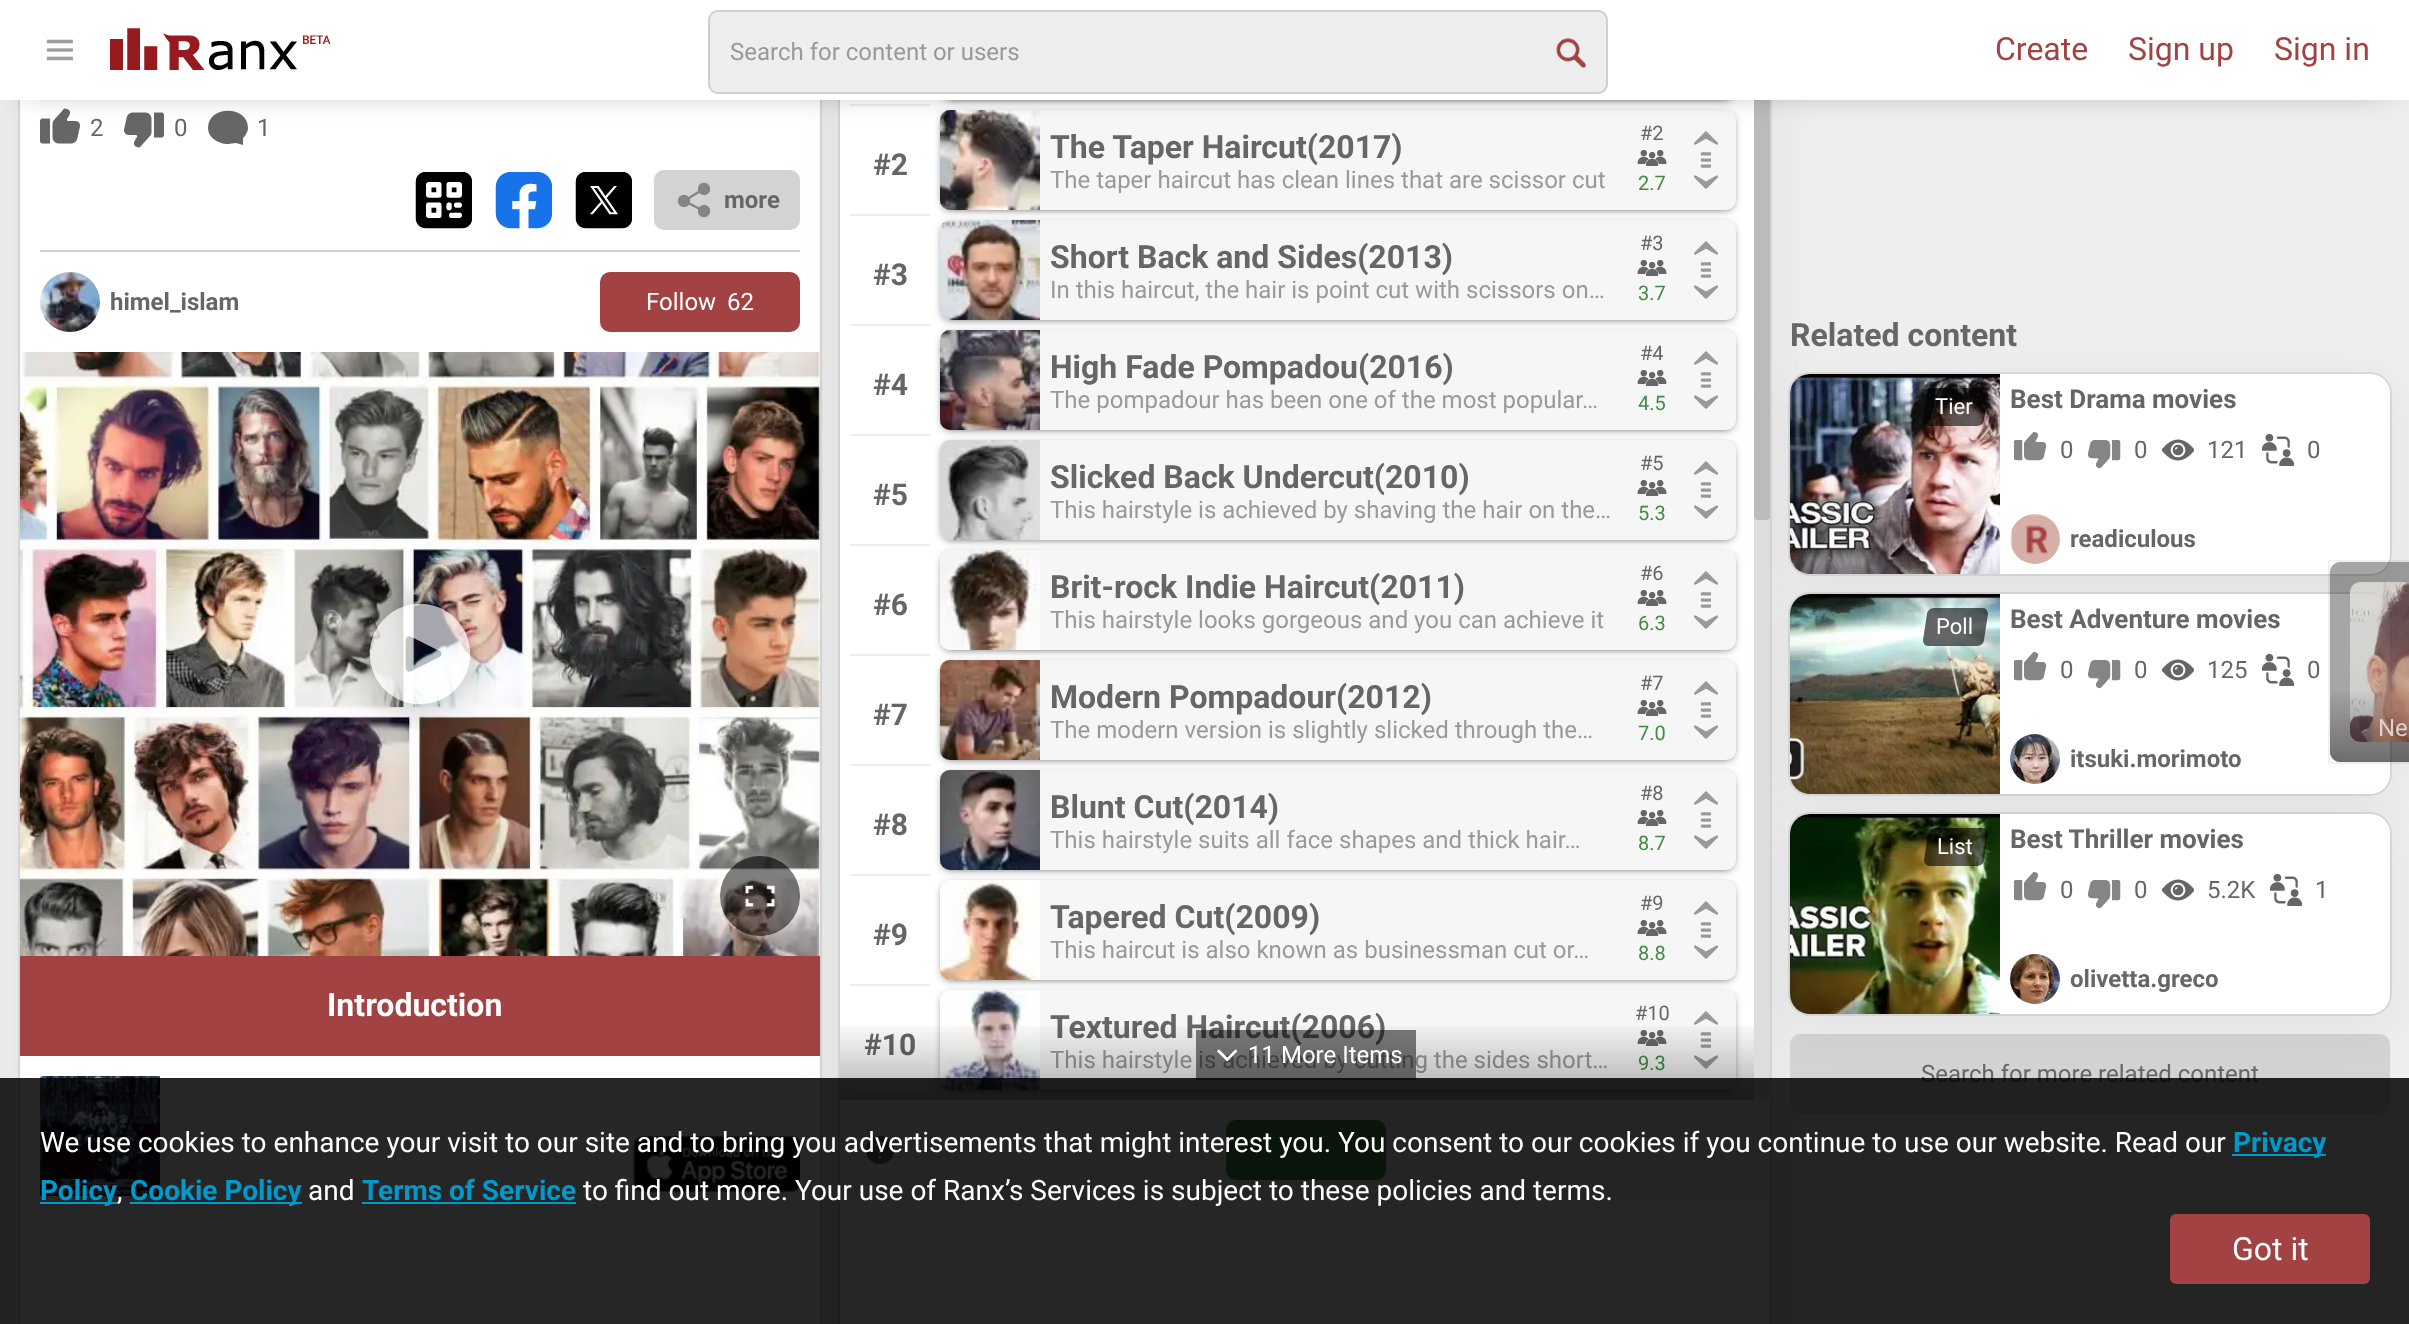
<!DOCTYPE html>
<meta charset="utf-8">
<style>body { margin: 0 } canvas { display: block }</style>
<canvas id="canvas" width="2409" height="1324"></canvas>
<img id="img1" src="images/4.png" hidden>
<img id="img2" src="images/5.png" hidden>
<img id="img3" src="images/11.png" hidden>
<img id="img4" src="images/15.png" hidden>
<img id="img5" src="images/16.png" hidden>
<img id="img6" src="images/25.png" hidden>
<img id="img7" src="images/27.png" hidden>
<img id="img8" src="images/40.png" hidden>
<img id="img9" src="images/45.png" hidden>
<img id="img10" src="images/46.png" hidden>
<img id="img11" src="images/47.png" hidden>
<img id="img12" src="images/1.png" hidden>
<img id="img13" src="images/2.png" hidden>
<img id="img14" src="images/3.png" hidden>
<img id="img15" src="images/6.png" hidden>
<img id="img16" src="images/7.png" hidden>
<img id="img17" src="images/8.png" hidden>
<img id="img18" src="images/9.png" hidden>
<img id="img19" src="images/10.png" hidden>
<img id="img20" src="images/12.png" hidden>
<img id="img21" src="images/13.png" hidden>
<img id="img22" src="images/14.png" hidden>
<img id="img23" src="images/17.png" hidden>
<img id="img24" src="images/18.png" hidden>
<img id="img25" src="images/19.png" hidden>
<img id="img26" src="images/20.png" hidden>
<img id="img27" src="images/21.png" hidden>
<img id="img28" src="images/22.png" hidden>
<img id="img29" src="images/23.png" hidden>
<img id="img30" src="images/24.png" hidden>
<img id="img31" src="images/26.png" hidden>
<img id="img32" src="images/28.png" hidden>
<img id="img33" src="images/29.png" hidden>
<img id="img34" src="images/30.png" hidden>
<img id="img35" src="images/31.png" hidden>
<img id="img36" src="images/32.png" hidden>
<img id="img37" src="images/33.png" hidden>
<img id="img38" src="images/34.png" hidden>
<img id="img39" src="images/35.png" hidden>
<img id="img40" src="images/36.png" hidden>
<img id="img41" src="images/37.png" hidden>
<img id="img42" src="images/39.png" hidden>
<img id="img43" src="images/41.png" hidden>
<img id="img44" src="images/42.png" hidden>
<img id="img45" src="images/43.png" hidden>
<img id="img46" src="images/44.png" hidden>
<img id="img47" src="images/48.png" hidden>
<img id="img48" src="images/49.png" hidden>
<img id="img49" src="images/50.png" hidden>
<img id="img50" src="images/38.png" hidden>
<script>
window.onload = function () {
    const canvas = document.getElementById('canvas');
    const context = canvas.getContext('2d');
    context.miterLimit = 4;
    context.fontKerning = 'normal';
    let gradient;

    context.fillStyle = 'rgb(238, 238, 238)';
    context.fillRect(0, 0, 2409, 1324);
    context.strokeStyle = 'rgb(219, 219, 219)';
    context.lineWidth = 2;
    context.strokeRect(19, -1, 802, 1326);
    context.fillStyle = 'rgba(0, 0, 0, 0.05)';
    context.filter = 'blur(24px)';
    context.beginPath();
    context.roundRect(20, -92, 800, 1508, 20);
    context.fill();
    context.filter = 'none';
    context.fillStyle = 'rgb(255, 255, 255)';
    context.fillRect(20, 100, 800, 1224);
    context.drawImage(document.getElementById('img1'), 40, 108, 40, 36);
    context.drawImage(document.getElementById('img2'), 124, 112, 40, 36);
    context.fillStyle = 'rgb(102, 102, 102)';
    context.beginPath();
    context.moveTo(208, 128);
    context.bezierCurveTo(208, 105, 248, 105, 248, 128);
    context.bezierCurveTo(248, 131, 246, 134, 245, 136);
    context.lineTo(243, 138);
    context.lineTo(243, 145);
    context.lineTo(236, 143);
    context.lineTo(228, 144);
    context.bezierCurveTo(219, 144, 208, 138, 208, 128);
    context.closePath();
    context.fill();
    context.strokeStyle = 'rgba(0, 0, 0, 0.08)';
    context.strokeRect(839, -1, 932, 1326);
    context.fillStyle = 'rgb(209, 211, 212)';
    context.beginPath();
    context.roundRect(654, 170, 146, 60, 10);
    context.fill();
    context.fillStyle = 'rgb(207, 207, 207)';
    context.fillRect(40, 250, 760, 2);
    context.fillStyle = 'rgb(162, 66, 66)';
    context.beginPath();
    context.roundRect(600, 272, 200, 60, 10);
    context.fill();
    context.drawImage(document.getElementById('img3'), 20, 352, 800, 604);
    context.fillRect(20, 956, 800, 100);
    context.drawImage(document.getElementById('img4'), 632, 1136, 168, 56);
    context.fillStyle = 'rgba(0, 0, 0, 0.05)';
    context.filter = 'blur(24px)';
    context.beginPath();
    context.roundRect(840, -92, 930, 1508, 20);
    context.fill();
    context.filter = 'none';
    context.fillStyle = 'rgb(255, 255, 255)';
    context.fillRect(840, 100, 930, 1224);
    context.fillStyle = 'rgb(238, 238, 238)';
    context.fillRect(850, 104, 80, 2);
    context.fillStyle = 'rgb(34, 34, 34)';
    context.filter = 'blur(5px)';
    context.beginPath();
    context.roundRect(944, 6, 788, 92, 6);
    context.fill();
    context.filter = 'none';
    context.fillStyle = 'rgb(238, 238, 238)';
    context.fillRect(850, 214, 80, 2);
    context.fillStyle = 'rgb(34, 34, 34)';
    context.filter = 'blur(5px)';
    context.beginPath();
    context.roundRect(944, 116, 788, 92, 6);
    context.fill();
    context.filter = 'none';
    context.drawImage(document.getElementById('img5'), 940, 110, 10, 100);
    context.fillStyle = 'rgb(246, 246, 246)';
    context.beginPath();
    context.roundRect(940, 110, 796, 100, 10);
    context.fill();
    context.drawImage(document.getElementById('img6'), 940, 110, 100, 100);
    context.drawImage(document.getElementById('img7'), 1694, 131, 24, 14);
    context.beginPath();
    context.roundRect(1789, 373, 602, 202, 21);
    context.stroke();
    context.fillStyle = 'rgba(0, 0, 0, 0.05)';
    context.filter = 'blur(24px)';
    context.beginPath();
    context.roundRect(1790, 386, 600, 200, 20);
    context.fill();
    context.filter = 'none';
    context.fillStyle = 'rgb(255, 255, 255)';
    context.beginPath();
    context.roundRect(1790, 374, 600, 200, 20);
    context.fill();
    context.drawImage(document.getElementById('img8'), 1790, 374, 210, 200);
    context.drawImage(document.getElementById('img9'), 2010, 514, 50, 50);
    context.beginPath();
    context.roundRect(1789, 593, 602, 202, 21);
    context.stroke();
    context.fillStyle = 'rgba(0, 0, 0, 0.05)';
    context.filter = 'blur(24px)';
    context.beginPath();
    context.roundRect(1790, 606, 600, 200, 20);
    context.fill();
    context.filter = 'none';
    context.fillStyle = 'rgb(255, 255, 255)';
    context.beginPath();
    context.roundRect(1790, 594, 600, 200, 20);
    context.fill();
    context.drawImage(document.getElementById('img10'), 1790, 594, 210, 200);
    context.drawImage(document.getElementById('img11'), 2010, 734, 50, 50);
    context.beginPath();
    context.roundRect(1789, 813, 602, 202, 21);
    context.stroke();
    context.fillStyle = 'rgb(209, 211, 212)';
    context.beginPath();
    context.roundRect(1790, 1034, 600, 80, 10);
    context.fill();
    context.fillStyle = 'rgba(0, 0, 0, 0.05)';
    context.filter = 'blur(24px)';
    context.beginPath();
    context.roundRect(1790, 826, 600, 200, 20);
    context.fill();
    context.filter = 'none';
    context.fillStyle = 'rgb(221, 221, 221)';
    context.fillRect(1754, 516, 16, 584);
    context.fillStyle = 'rgb(187, 187, 187)';
    context.beginPath();
    context.roundRect(1754, -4, 16, 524, 4);
    context.fill();
    context.fillStyle = 'rgb(0, 0, 0)';
    context.filter = 'blur(20px)';
    context.beginPath();
    context.rect(26, 26, 2358, 48);
    context.fill();
    context.filter = 'none';
    context.fillStyle = 'rgb(255, 255, 255)';
    context.fillRect(0, 0, 2409, 100);
    context.drawImage(document.getElementById('img12'), 46, 39, 27, 22);
    context.drawImage(document.getElementById('img13'), 110, 28, 221, 42);
    context.fillStyle = 'rgb(238, 238, 238)';
    context.beginPath();
    context.roundRect(709, 11, 898, 82, 9);
    context.fill();
    context.strokeStyle = 'rgb(207, 207, 207)';
    context.stroke();
    context.drawImage(document.getElementById('img14'), 1556, 38, 30, 30);
    context.drawImage(document.getElementById('img15'), 415, 172, 57, 57);
    context.drawImage(document.getElementById('img16'), 495, 172, 57, 57);
    context.drawImage(document.getElementById('img17'), 575, 172, 57, 57);
    context.drawImage(document.getElementById('img18'), 677, 182, 34, 36);
    context.drawImage(document.getElementById('img19'), 40, 272, 60, 60);
    context.drawImage(document.getElementById('img20'), 345, 577, 151, 153);
    context.save();
    context.beginPath();
    context.moveTo(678, 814);
    context.lineTo(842, 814);
    context.lineTo(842, 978);
    context.lineTo(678, 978);
    context.closePath();
    context.moveTo(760, 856);
    context.bezierCurveTo(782, 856, 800, 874, 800, 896);
    context.bezierCurveTo(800, 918, 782, 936, 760, 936);
    context.bezierCurveTo(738, 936, 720, 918, 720, 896);
    context.bezierCurveTo(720, 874, 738, 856, 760, 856);
    context.closePath();
    context.clip('evenodd');
    context.fillStyle = 'rgb(255, 255, 255)';
    context.filter = 'blur(17px)';
    context.beginPath();
    context.roundRect(730, 866, 60, 60, 30);
    context.fill();
    context.filter = 'none';
    context.restore();
    context.fillStyle = 'rgba(0, 0, 0, 0.5)';
    context.beginPath();
    context.arc(760, 896, 40, 0, 2 * Math.PI);
    context.fill();
    context.drawImage(document.getElementById('img21'), 745, 885, 31, 22);
    context.drawImage(document.getElementById('img22'), 40, 1076, 120, 120);
    context.fillStyle = 'rgb(238, 238, 238)';
    context.fillRect(850, 324, 80, 2);
    context.fillStyle = 'rgb(34, 34, 34)';
    context.filter = 'blur(5px)';
    context.beginPath();
    context.roundRect(944, 226, 788, 92, 6);
    context.fill();
    context.filter = 'none';
    context.drawImage(document.getElementById('img23'), 940, 220, 10, 100);
    context.fillStyle = 'rgb(238, 238, 238)';
    context.fillRect(850, 434, 80, 2);
    context.fillStyle = 'rgb(34, 34, 34)';
    context.filter = 'blur(5px)';
    context.beginPath();
    context.roundRect(944, 336, 788, 92, 6);
    context.fill();
    context.filter = 'none';
    context.drawImage(document.getElementById('img24'), 940, 330, 10, 100);
    context.fillStyle = 'rgb(238, 238, 238)';
    context.fillRect(850, 544, 80, 2);
    context.fillStyle = 'rgb(34, 34, 34)';
    context.filter = 'blur(5px)';
    context.beginPath();
    context.roundRect(944, 446, 788, 92, 6);
    context.fill();
    context.filter = 'none';
    context.drawImage(document.getElementById('img25'), 940, 440, 10, 100);
    context.fillStyle = 'rgb(238, 238, 238)';
    context.fillRect(850, 654, 80, 2);
    context.fillStyle = 'rgb(34, 34, 34)';
    context.filter = 'blur(5px)';
    context.beginPath();
    context.roundRect(944, 556, 788, 92, 6);
    context.fill();
    context.filter = 'none';
    context.drawImage(document.getElementById('img26'), 940, 550, 10, 100);
    context.fillStyle = 'rgb(238, 238, 238)';
    context.fillRect(850, 764, 80, 2);
    context.fillStyle = 'rgb(34, 34, 34)';
    context.filter = 'blur(5px)';
    context.beginPath();
    context.roundRect(944, 666, 788, 92, 6);
    context.fill();
    context.filter = 'none';
    context.drawImage(document.getElementById('img27'), 940, 660, 10, 100);
    context.fillStyle = 'rgb(238, 238, 238)';
    context.fillRect(850, 874, 80, 2);
    context.fillStyle = 'rgb(34, 34, 34)';
    context.filter = 'blur(5px)';
    context.beginPath();
    context.roundRect(944, 776, 788, 92, 6);
    context.fill();
    context.filter = 'none';
    context.drawImage(document.getElementById('img28'), 940, 770, 10, 100);
    context.fillStyle = 'rgb(238, 238, 238)';
    context.fillRect(850, 984, 80, 2);
    context.fillStyle = 'rgb(34, 34, 34)';
    context.filter = 'blur(5px)';
    context.beginPath();
    context.roundRect(944, 886, 788, 92, 6);
    context.fill();
    context.filter = 'none';
    context.drawImage(document.getElementById('img29'), 940, 880, 10, 100);
    context.fillStyle = 'rgb(238, 238, 238)';
    context.fillRect(850, 1094, 80, 2);
    context.fillStyle = 'rgb(34, 34, 34)';
    context.filter = 'blur(5px)';
    context.beginPath();
    context.roundRect(944, 996, 788, 92, 6);
    context.fill();
    context.filter = 'none';
    context.drawImage(document.getElementById('img30'), 940, 990, 10, 100);
    context.save();
    context.beginPath();
    context.rect(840, 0, 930, 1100);
    context.clip();
    context.filter = 'blur(5px)';
    context.beginPath();
    context.roundRect(944, 1106, 788, 92, 6);
    context.fill();
    context.filter = 'none';
    context.restore();
    context.drawImage(document.getElementById('img31'), 1637, 150, 30, 16);
    context.drawImage(document.getElementById('img32'), 1700, 152, 11, 16);
    context.drawImage(document.getElementById('img33'), 1694, 175, 24, 14);
    context.fillStyle = 'rgb(246, 246, 246)';
    context.beginPath();
    context.roundRect(940, 220, 796, 100, 10);
    context.fill();
    context.drawImage(document.getElementById('img34'), 940, 220, 100, 100);
    context.drawImage(document.getElementById('img31'), 1637, 260, 30, 16);
    context.drawImage(document.getElementById('img7'), 1694, 241, 24, 14);
    context.drawImage(document.getElementById('img32'), 1700, 262, 11, 16);
    context.drawImage(document.getElementById('img33'), 1694, 285, 24, 14);
    context.beginPath();
    context.roundRect(940, 330, 796, 100, 10);
    context.fill();
    context.drawImage(document.getElementById('img35'), 940, 330, 100, 100);
    context.drawImage(document.getElementById('img31'), 1637, 370, 30, 16);
    context.drawImage(document.getElementById('img7'), 1694, 351, 24, 14);
    context.drawImage(document.getElementById('img32'), 1700, 372, 11, 16);
    context.drawImage(document.getElementById('img33'), 1694, 395, 24, 14);
    context.beginPath();
    context.roundRect(940, 440, 796, 100, 10);
    context.fill();
    context.drawImage(document.getElementById('img36'), 940, 440, 100, 100);
    context.drawImage(document.getElementById('img31'), 1637, 480, 30, 16);
    context.drawImage(document.getElementById('img7'), 1694, 461, 24, 14);
    context.drawImage(document.getElementById('img32'), 1700, 482, 11, 16);
    context.drawImage(document.getElementById('img33'), 1694, 505, 24, 14);
    context.beginPath();
    context.roundRect(940, 550, 796, 100, 10);
    context.fill();
    context.drawImage(document.getElementById('img37'), 940, 550, 100, 100);
    context.drawImage(document.getElementById('img31'), 1637, 590, 30, 16);
    context.drawImage(document.getElementById('img7'), 1694, 571, 24, 14);
    context.drawImage(document.getElementById('img32'), 1700, 592, 11, 16);
    context.drawImage(document.getElementById('img33'), 1694, 615, 24, 14);
    context.beginPath();
    context.roundRect(940, 660, 796, 100, 10);
    context.fill();
    context.drawImage(document.getElementById('img38'), 940, 660, 100, 100);
    context.drawImage(document.getElementById('img31'), 1637, 700, 30, 16);
    context.drawImage(document.getElementById('img7'), 1694, 681, 24, 14);
    context.drawImage(document.getElementById('img32'), 1700, 702, 11, 16);
    context.drawImage(document.getElementById('img33'), 1694, 725, 24, 14);
    context.beginPath();
    context.roundRect(940, 770, 796, 100, 10);
    context.fill();
    context.drawImage(document.getElementById('img39'), 940, 770, 100, 100);
    context.drawImage(document.getElementById('img31'), 1637, 810, 30, 16);
    context.drawImage(document.getElementById('img7'), 1694, 791, 24, 14);
    context.drawImage(document.getElementById('img32'), 1700, 812, 11, 16);
    context.drawImage(document.getElementById('img33'), 1694, 835, 24, 14);
    context.beginPath();
    context.roundRect(940, 880, 796, 100, 10);
    context.fill();
    context.drawImage(document.getElementById('img40'), 940, 880, 100, 100);
    context.drawImage(document.getElementById('img31'), 1637, 920, 30, 16);
    context.drawImage(document.getElementById('img7'), 1694, 901, 24, 14);
    context.drawImage(document.getElementById('img32'), 1700, 922, 11, 16);
    context.drawImage(document.getElementById('img33'), 1694, 945, 24, 14);
    context.beginPath();
    context.roundRect(940, 990, 796, 100, 10);
    context.fill();
    context.drawImage(document.getElementById('img41'), 940, 990, 100, 100);
    context.drawImage(document.getElementById('img31'), 1637, 1030, 30, 16);
    context.drawImage(document.getElementById('img7'), 1694, 1011, 24, 14);
    context.drawImage(document.getElementById('img32'), 1700, 1032, 11, 16);
    context.drawImage(document.getElementById('img33'), 1694, 1055, 24, 14);
    context.fillStyle = 'rgb(238, 238, 238)';
    context.fillRect(840, 1100, 930, 100);
    context.drawImage(document.getElementById('img42'), 865, 1136, 29, 28);
    context.fillStyle = 'rgb(65, 139, 69)';
    context.beginPath();
    context.roundRect(1226, 1120, 160, 60, 10);
    context.fill();
    context.fillStyle = 'rgba(0, 0, 0, 0.6)';
    context.beginPath();
    context.moveTo(1933, 388);
    context.lineTo(1983, 388);
    context.bezierCurveTo(1986, 388, 1988, 391, 1988, 394);
    context.lineTo(1984, 420);
    context.bezierCurveTo(1984, 423, 1981, 426, 1977, 426);
    context.lineTo(1928, 426);
    context.bezierCurveTo(1924, 426, 1922, 423, 1923, 420);
    context.lineTo(1926, 394);
    context.bezierCurveTo(1927, 391, 1930, 388, 1933, 388);
    context.closePath();
    context.fill();
    context.drawImage(document.getElementById('img43'), 2014, 432, 33, 29);
    context.drawImage(document.getElementById('img44'), 2088, 440, 33, 29);
    context.drawImage(document.getElementById('img45'), 2161, 439, 33, 22);
    context.drawImage(document.getElementById('img46'), 2262, 434, 32, 32);
    context.beginPath();
    context.moveTo(1934, 608);
    context.lineTo(1983, 608);
    context.bezierCurveTo(1986, 608, 1988, 611, 1988, 614);
    context.lineTo(1984, 640);
    context.bezierCurveTo(1984, 643, 1981, 646, 1977, 646);
    context.lineTo(1928, 646);
    context.bezierCurveTo(1925, 646, 1923, 643, 1923, 640);
    context.lineTo(1927, 614);
    context.bezierCurveTo(1927, 611, 1930, 608, 1934, 608);
    context.closePath();
    context.fill();
    context.drawImage(document.getElementById('img43'), 2014, 652, 33, 29);
    context.drawImage(document.getElementById('img44'), 2088, 660, 33, 29);
    context.drawImage(document.getElementById('img45'), 2161, 659, 33, 22);
    context.drawImage(document.getElementById('img46'), 2262, 654, 32, 32);
    context.fillStyle = 'rgb(255, 255, 255)';
    context.beginPath();
    context.roundRect(1790, 814, 600, 200, 20);
    context.fill();
    context.drawImage(document.getElementById('img47'), 1790, 814, 210, 200);
    context.fillStyle = 'rgba(0, 0, 0, 0.6)';
    context.beginPath();
    context.moveTo(1935, 828);
    context.lineTo(1983, 828);
    context.bezierCurveTo(1986, 828, 1988, 831, 1988, 834);
    context.lineTo(1984, 860);
    context.bezierCurveTo(1984, 863, 1981, 866, 1977, 866);
    context.lineTo(1930, 866);
    context.bezierCurveTo(1926, 866, 1924, 863, 1924, 860);
    context.lineTo(1928, 834);
    context.bezierCurveTo(1929, 831, 1932, 828, 1935, 828);
    context.closePath();
    context.fill();
    context.drawImage(document.getElementById('img43'), 2014, 872, 33, 29);
    context.drawImage(document.getElementById('img44'), 2088, 880, 33, 29);
    context.drawImage(document.getElementById('img45'), 2161, 879, 33, 22);
    context.drawImage(document.getElementById('img46'), 2270, 874, 32, 32);
    context.drawImage(document.getElementById('img48'), 2010, 954, 50, 50);
    context.strokeStyle = 'rgba(0, 0, 0, 0.06)';
    context.strokeRect(2329, 561, 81, 202);
    context.fillStyle = 'rgba(0, 0, 0, 0.35)';
    context.beginPath();
    context.moveTo(2340, 562);
    context.lineTo(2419, 562);
    context.lineTo(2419, 762);
    context.lineTo(2340, 762);
    context.bezierCurveTo(2334.5, 762, 2330, 757.5, 2330, 752);
    context.lineTo(2330, 572);
    context.bezierCurveTo(2330, 566.5, 2334.5, 562, 2340, 562);
    context.closePath();
    context.fill();
    context.drawImage(document.getElementById('img49'), 2350, 582, 59, 160);
    gradient = context.createLinearGradient(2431, 689, 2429, 765);
    gradient.addColorStop(0, 'rgba(0, 0, 0, 0)');
    gradient.addColorStop(1, 'rgba(0, 0, 0, 0.35)');
    context.fillStyle = gradient;
    context.beginPath();
    context.moveTo(2330, 692);
    context.lineTo(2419, 692);
    context.lineTo(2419, 762);
    context.lineTo(2340, 762);
    context.bezierCurveTo(2334.5, 762, 2330, 757.5, 2330, 752);
    context.closePath();
    context.fill();
    context.font = '24px Roboto';
    context.fillStyle = 'rgb(153, 153, 153)';
    context.fillText('Search for content or users', 730, 60);
    context.font = '32px Roboto';
    context.fillStyle = 'rgb(162, 66, 66)';
    context.fillText('Create', 1995, 60);
    context.fillText('Sign up', 2128, 60);
    context.fillText('Sign in', 2274, 60);
    context.font = '24px Roboto';
    context.fillStyle = 'rgb(102, 102, 102)';
    context.fillText('2', 90, 136);
    context.fillText('0', 174, 136);
    context.fillText('1', 257, 136);
    context.font = 'bold 24px Roboto';
    context.fillText('more', 724, 208);
    context.fillText('himel_islam', 110, 310);
    context.font = '24px Roboto';
    context.fillStyle = 'rgb(255, 255, 255)';
    context.fillText('Follow', 646, 310);
    context.fillText('62', 727, 310);
    context.font = 'bold 32px Roboto';
    context.fillText('Introduction', 327, 1016);
    context.font = 'bold 30px Roboto';
    context.fillStyle = 'rgb(102, 102, 102)';
    context.fillText('#2', 873, 175);
    context.fillText('#3', 873, 285);
    context.fillText('#4', 873, 395);
    context.fillText('#5', 873, 505);
    context.fillText('#6', 873, 615);
    context.fillText('#7', 873, 725);
    context.fillText('#8', 873, 835);
    context.fillText('#9', 873, 945);
    context.fillText('#10', 864, 1055);
    context.font = 'bold 32px Roboto';
    context.fillText('The Taper Haircut(2017)', 1050, 158);
    context.font = '20px Roboto';
    context.fillText('#2', 1640, 140);
    context.fillStyle = 'rgb(65, 139, 69)';
    context.fillText('2.7', 1638, 190);
    context.font = '24px Roboto';
    context.fillStyle = 'rgb(153, 153, 153)';
    context.fillText('The taper haircut has clean lines that are scissor cut', 1050, 188);
    context.font = 'bold 32px Roboto';
    context.fillStyle = 'rgb(102, 102, 102)';
    context.fillText('Short Back and Sides(2013)', 1050, 268);
    context.font = '20px Roboto';
    context.fillText('#3', 1640, 250);
    context.fillStyle = 'rgb(65, 139, 69)';
    context.fillText('3.7', 1638, 300);
    context.font = '24px Roboto';
    context.fillStyle = 'rgb(153, 153, 153)';
    context.fillText('In this haircut, the hair is point cut with scissors on…', 1050, 298);
    context.font = 'bold 32px Roboto';
    context.fillStyle = 'rgb(102, 102, 102)';
    context.fillText('High Fade Pompadou(2016)', 1050, 378);
    context.font = '20px Roboto';
    context.fillText('#4', 1640, 360);
    context.fillStyle = 'rgb(65, 139, 69)';
    context.fillText('4.5', 1638, 410);
    context.font = '24px Roboto';
    context.fillStyle = 'rgb(153, 153, 153)';
    context.fillText('The pompadour has been one of the most popular…', 1050, 408);
    context.font = 'bold 32px Roboto';
    context.fillStyle = 'rgb(102, 102, 102)';
    context.fillText('Slicked Back Undercut(2010)', 1050, 488);
    context.font = '20px Roboto';
    context.fillText('#5', 1640, 470);
    context.fillStyle = 'rgb(65, 139, 69)';
    context.fillText('5.3', 1638, 520);
    context.font = '24px Roboto';
    context.fillStyle = 'rgb(153, 153, 153)';
    context.fillText('This hairstyle is achieved by shaving the hair on the…', 1050, 518);
    context.font = 'bold 32px Roboto';
    context.fillStyle = 'rgb(102, 102, 102)';
    context.fillText('Brit-rock Indie Haircut(2011)', 1050, 598);
    context.font = '20px Roboto';
    context.fillText('#6', 1640, 580);
    context.fillStyle = 'rgb(65, 139, 69)';
    context.fillText('6.3', 1638, 630);
    context.font = '24px Roboto';
    context.fillStyle = 'rgb(153, 153, 153)';
    context.fillText('This hairstyle looks gorgeous and you can achieve it', 1050, 628);
    context.font = 'bold 32px Roboto';
    context.fillStyle = 'rgb(102, 102, 102)';
    context.fillText('Modern Pompadour(2012)', 1050, 708);
    context.font = '20px Roboto';
    context.fillText('#7', 1640, 690);
    context.fillStyle = 'rgb(65, 139, 69)';
    context.fillText('7.0', 1638, 740);
    context.font = '24px Roboto';
    context.fillStyle = 'rgb(153, 153, 153)';
    context.fillText('The modern version is slightly slicked through the…', 1050, 738);
    context.font = 'bold 32px Roboto';
    context.fillStyle = 'rgb(102, 102, 102)';
    context.fillText('Blunt Cut(2014)', 1050, 818);
    context.font = '20px Roboto';
    context.fillText('#8', 1640, 800);
    context.fillStyle = 'rgb(65, 139, 69)';
    context.fillText('8.7', 1638, 850);
    context.font = '24px Roboto';
    context.fillStyle = 'rgb(153, 153, 153)';
    context.fillText('This hairstyle suits all face shapes and thick hair…', 1050, 848);
    context.font = 'bold 32px Roboto';
    context.fillStyle = 'rgb(102, 102, 102)';
    context.fillText('Tapered Cut(2009)', 1050, 928);
    context.font = '20px Roboto';
    context.fillText('#9', 1640, 910);
    context.fillStyle = 'rgb(65, 139, 69)';
    context.fillText('8.8', 1638, 960);
    context.font = '24px Roboto';
    context.fillStyle = 'rgb(153, 153, 153)';
    context.fillText('This haircut is also known as businessman cut or…', 1050, 958);
    context.font = 'bold 32px Roboto';
    context.fillStyle = 'rgb(102, 102, 102)';
    context.fillText('Textured Haircut(2006)', 1050, 1038);
    context.font = '20px Roboto';
    context.fillText('#10', 1635, 1020);
    context.fillStyle = 'rgb(65, 139, 69)';
    context.fillText('9.3', 1638, 1070);
    context.font = '24px Roboto';
    context.fillStyle = 'rgb(153, 153, 153)';
    context.fillText('This hairstyle is achieved by cutting the sides short…', 1050, 1068);
    gradient = context.createLinearGradient(1305, 1100, 1305, 1020);
    gradient.addColorStop(0, 'rgba(0, 0, 0, 0.3)');
    gradient.addColorStop(1, 'rgba(0, 0, 0, 0)');
    context.fillStyle = gradient;
    context.fillRect(840, 1026, 914, 74);
    context.fillStyle = 'rgba(0, 0, 0, 0.5)';
    context.fillRect(1196, 1030, 220, 50);
    context.drawImage(document.getElementById('img50'), 1217, 1049, 21, 13);
    context.fillStyle = 'rgb(255, 255, 255)';
    context.fillText('11 More Items', 1248, 1063);
    context.font = 'bold 32px Roboto';
    context.fillStyle = 'rgb(102, 102, 102)';
    context.fillText('Related content', 1790, 346);
    context.font = '22px Roboto';
    context.fillStyle = 'rgb(255, 255, 255)';
    context.fillText('Tier', 1935, 414);
    context.font = 'bold 26px Roboto';
    context.fillStyle = 'rgb(102, 102, 102)';
    context.fillText('Best Drama movies', 2010, 408);
    context.font = '24px Roboto';
    context.fillText('0', 2060, 458);
    context.fillText('0', 2134, 458);
    context.fillText('121', 2207, 458);
    context.fillText('0', 2307, 458);
    context.font = 'bold 24px Roboto';
    context.fillText('readiculous', 2070, 547);
    context.font = '22px Roboto';
    context.fillStyle = 'rgb(255, 255, 255)';
    context.fillText('Poll', 1936, 634);
    context.font = 'bold 26px Roboto';
    context.fillStyle = 'rgb(102, 102, 102)';
    context.fillText('Best Adventure movies', 2010, 628);
    context.font = '24px Roboto';
    context.fillText('0', 2060, 678);
    context.fillText('0', 2134, 678);
    context.fillText('125', 2207, 678);
    context.fillText('0', 2307, 678);
    context.font = 'bold 24px Roboto';
    context.fillText('itsuki.morimoto', 2070, 767);
    context.font = '22px Roboto';
    context.fillStyle = 'rgb(255, 255, 255)';
    context.fillText('List', 1937, 854);
    context.font = 'bold 26px Roboto';
    context.fillStyle = 'rgb(102, 102, 102)';
    context.fillText('Best Thriller movies', 2010, 848);
    context.font = '24px Roboto';
    context.fillText('0', 2060, 898);
    context.fillText('0', 2134, 898);
    context.fillText('5.2K', 2207, 898);
    context.fillText('1', 2315, 898);
    context.font = 'bold 24px Roboto';
    context.fillText('olivetta.greco', 2070, 987);
    context.font = '24px Roboto';
    context.fillText('Search for more related content', 1921, 1082);
    context.fillStyle = 'rgb(222, 209, 205)';
    context.fillText('Ne', 2378, 736);
    context.fillStyle = 'rgba(0, 0, 0, 0.85)';
    context.fillRect(0, 1078, 2409, 246);
    context.font = '28px Roboto';
    context.fillStyle = 'rgb(255, 255, 255)';
    context.fillText('We use cookies to enhance your visit to our site and to bring you advertisements that might interest you. You consent to our cookies if you continue to use our website. Read our', 40, 1152);
    context.fillStyle = 'rgb(0, 153, 204)';
    context.fillRect(2232, 1154, 94, 2);
    context.font = 'bold 28px Roboto';
    context.fillText('Privacy', 2233, 1152);
    context.fillRect(40, 1202, 78, 2);
    context.fillText('Policy', 40, 1200);
    context.font = '28px Roboto';
    context.fillStyle = 'rgb(255, 255, 255)';
    context.fillText(',', 117, 1200);
    context.fillStyle = 'rgb(0, 153, 204)';
    context.fillRect(130, 1202, 172, 2);
    context.font = 'bold 28px Roboto';
    context.fillText('Cookie Policy', 130, 1200);
    context.font = '28px Roboto';
    context.fillStyle = 'rgb(255, 255, 255)';
    context.fillText('and', 308, 1200);
    context.font = 'bold 28px Roboto';
    context.fillStyle = 'rgb(0, 153, 204)';
    context.fillText('Terms of Service', 362, 1200);
    context.fillRect(362, 1202, 214, 2);
    context.font = '28px Roboto';
    context.fillStyle = 'rgb(255, 255, 255)';
    context.fillText('to find out more. Your use of Ranx’s Services is subject to these policies and terms.', 583, 1200);
    context.fillStyle = 'rgb(162, 66, 66)';
    context.beginPath();
    context.roundRect(2170, 1214, 200, 70, 6);
    context.fill();
    context.font = '32px Roboto';
    context.fillStyle = 'rgb(255, 255, 255)';
    context.fillText('Got it', 2232, 1260);
};
</script>
